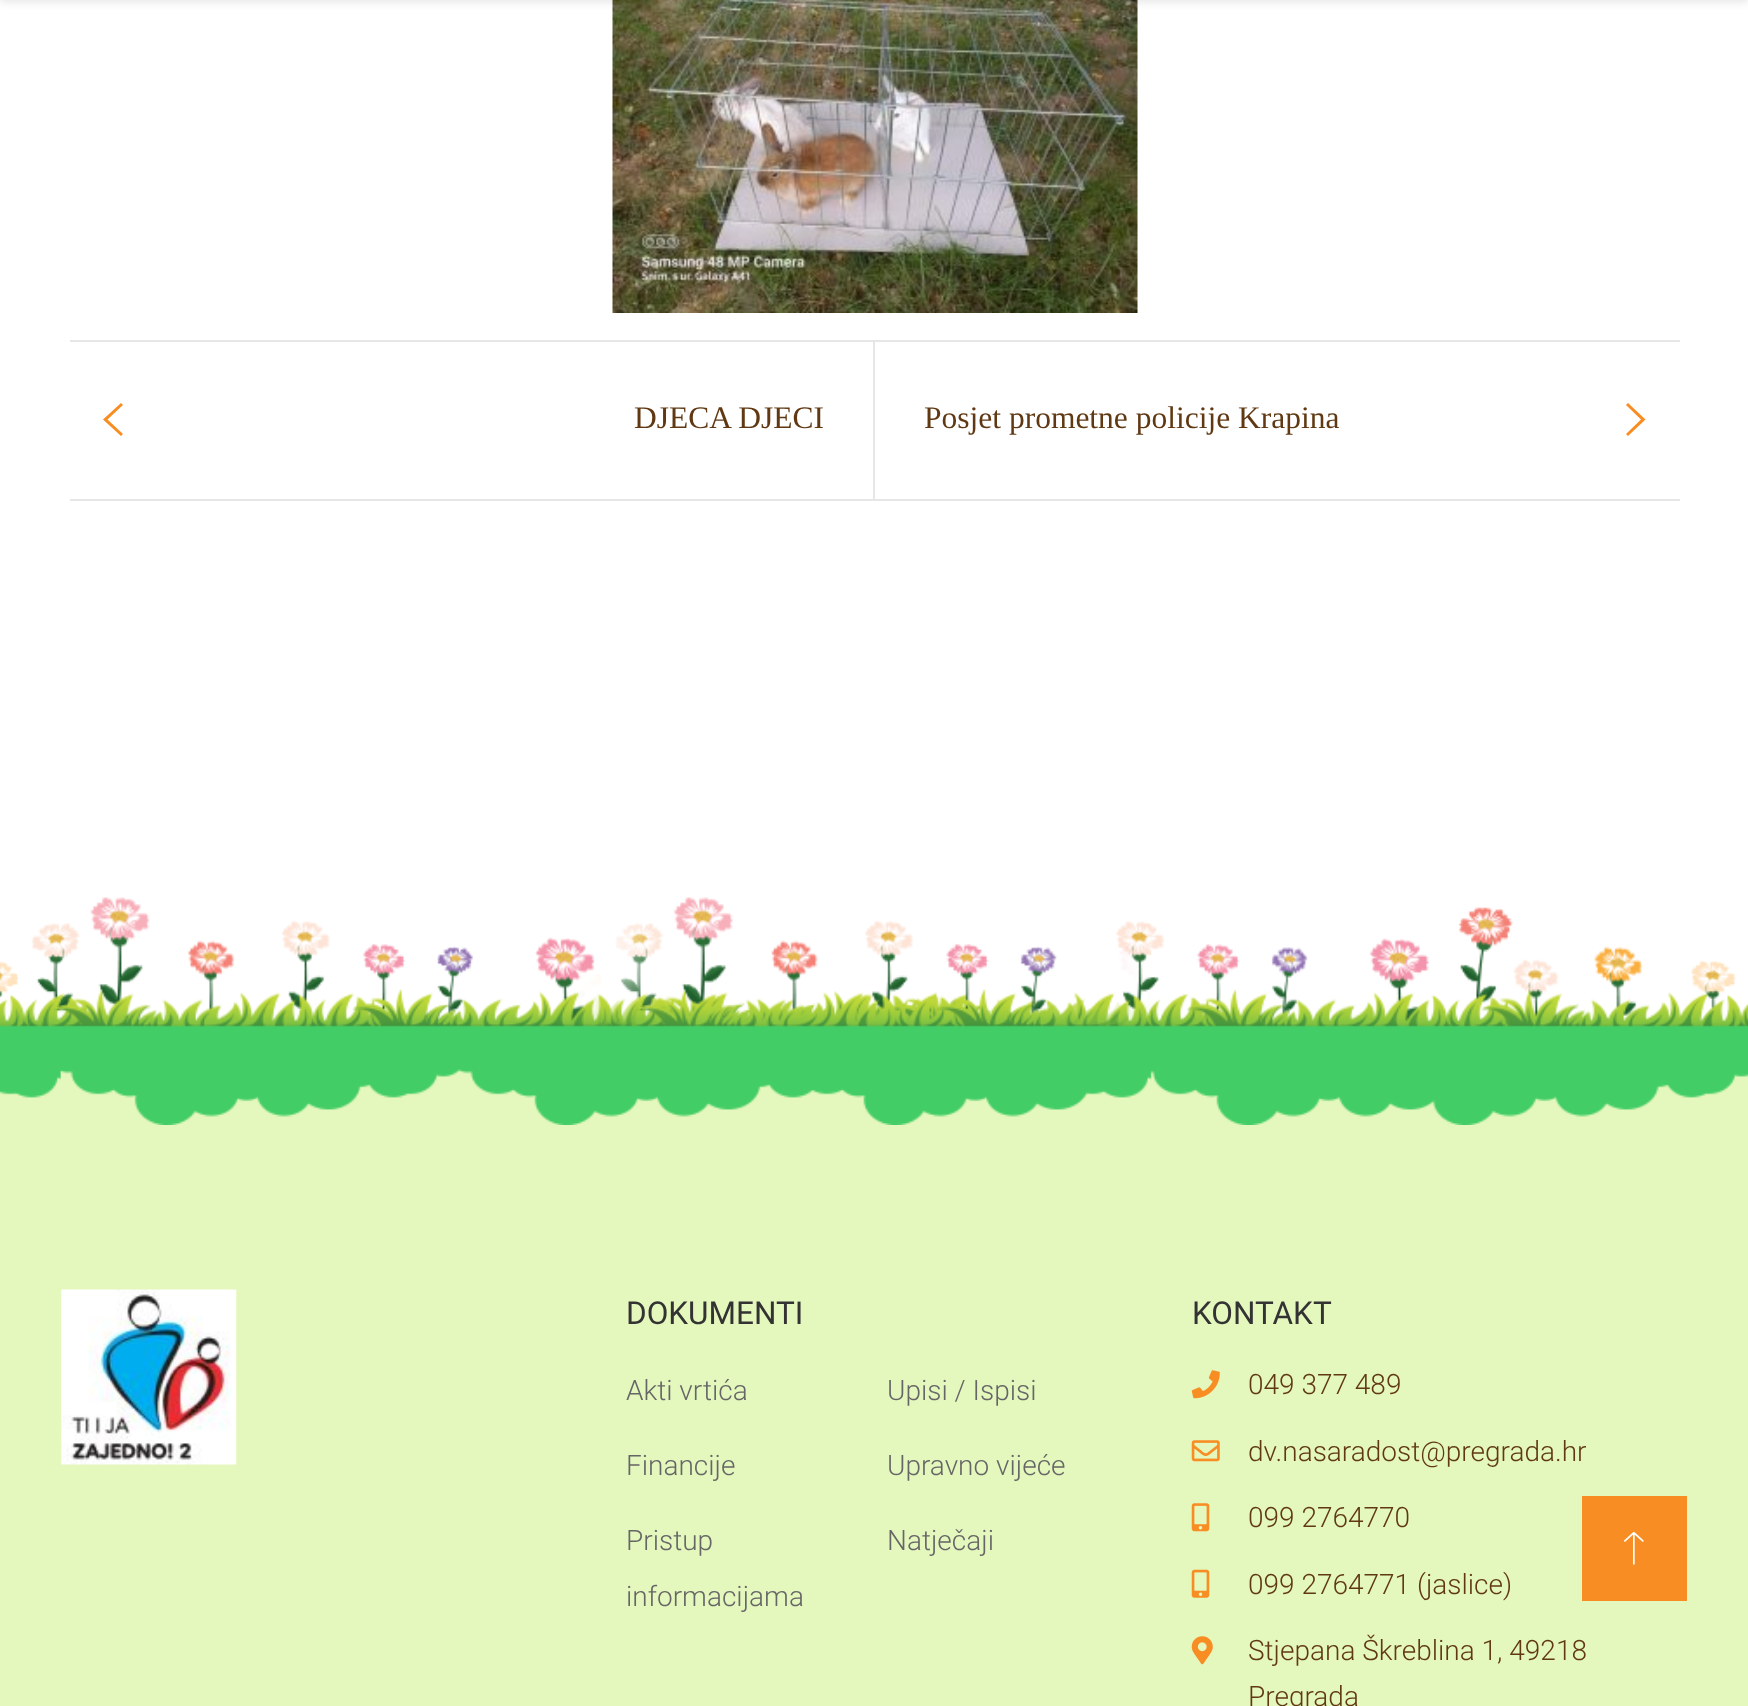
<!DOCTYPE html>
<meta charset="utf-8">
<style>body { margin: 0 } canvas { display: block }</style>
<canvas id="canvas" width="1748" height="1706"></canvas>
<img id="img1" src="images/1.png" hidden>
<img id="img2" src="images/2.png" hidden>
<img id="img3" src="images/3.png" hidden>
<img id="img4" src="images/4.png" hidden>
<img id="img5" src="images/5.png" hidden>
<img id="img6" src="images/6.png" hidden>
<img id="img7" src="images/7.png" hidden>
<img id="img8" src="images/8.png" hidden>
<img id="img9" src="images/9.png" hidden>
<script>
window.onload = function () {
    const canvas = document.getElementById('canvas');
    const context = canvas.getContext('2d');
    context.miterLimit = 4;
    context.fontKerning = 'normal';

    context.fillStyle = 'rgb(255, 255, 255)';
    context.fillRect(0, 0, 1748, 1706);
    context.drawImage(document.getElementById('img1'), 612, 0, 526, 313);
    context.fillStyle = 'rgba(0, 0, 0, 0.1)';
    context.filter = 'blur(4.5px)';
    context.beginPath();
    context.rect(0, -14, 1748, 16);
    context.fill();
    context.filter = 'none';
    context.fillStyle = 'rgb(230, 230, 230)';
    context.fillRect(70, 340, 1610, 2);
    context.fillRect(70, 499, 1610, 2);
    context.fillStyle = 'rgb(247, 141, 35)';
    context.beginPath();
    context.moveTo(123, 405);
    context.lineTo(107.5, 419.5);
    context.lineTo(123, 434);
    context.lineTo(121, 436);
    context.lineTo(103, 419.5);
    context.lineTo(121, 403);
    context.closePath();
    context.fill();
    context.fillStyle = 'rgb(230, 230, 230)';
    context.fillRect(873, 341, 2, 158);
    context.fillStyle = 'rgb(247, 141, 35)';
    context.beginPath();
    context.moveTo(1626, 405);
    context.lineTo(1628, 403);
    context.lineTo(1645.5, 419.5);
    context.lineTo(1628, 436);
    context.lineTo(1626, 434);
    context.lineTo(1641, 419.5);
    context.closePath();
    context.fill();
    context.fillStyle = 'rgb(228, 247, 189)';
    context.fillRect(0, 1069, 1748, 637);
    context.drawImage(document.getElementById('img2'), 0, 897, 1748, 228);
    context.drawImage(document.getElementById('img3'), 61, 1289, 176, 176);
    context.drawImage(document.getElementById('img4'), 1191, 1370, 29, 29);
    context.drawImage(document.getElementById('img5'), 1191, 1440, 29, 22);
    context.drawImage(document.getElementById('img6'), 1191, 1503, 19, 29);
    context.drawImage(document.getElementById('img7'), 1191, 1569, 19, 29);
    context.drawImage(document.getElementById('img8'), 1191, 1636, 22, 29);
    context.fillStyle = 'rgb(247, 141, 35)';
    context.fillRect(1582, 1496, 105, 105);
    context.drawImage(document.getElementById('img9'), 1624, 1531, 20, 34);
    context.font = '31.5px Liberation Serif';
    context.fillStyle = 'rgb(96, 57, 19)';
    context.fillText('DJECA DJECI', 634, 428);
    context.fillText('Posjet prometne policije Krapina', 924, 428);
    context.font = '31.5px Roboto';
    context.fillStyle = 'rgb(51, 51, 51)';
    context.fillText('DOKUMENTI', 626, 1324);
    context.font = '300 28px Roboto';
    context.fillStyle = 'rgb(102, 102, 102)';
    context.fillText('Akti vrtića', 626, 1400);
    context.fillText('Upisi / Ispisi', 887, 1400);
    context.fillText('Financije', 626, 1475);
    context.fillText('Upravno vijeće', 887, 1475);
    context.fillText('Pristup', 626, 1550);
    context.fillText('informacijama', 626, 1606);
    context.fillText('Natječaji', 887, 1550);
    context.font = '31.5px Roboto';
    context.fillStyle = 'rgb(51, 51, 51)';
    context.fillText('KONTAKT', 1192, 1324);
    context.font = '300 28px Roboto';
    context.fillStyle = 'rgb(96, 57, 19)';
    context.fillText('049 377 489', 1248, 1394);
    context.fillText('dv.nasaradost@pregrada.hr', 1248, 1461);
    context.fillText('099 2764770', 1248, 1527);
    context.fillText('099 2764771 (jaslice)', 1248, 1594);
    context.fillText('Stjepana Škreblina 1, 49218', 1248, 1660);
    context.fillText('Pregrada', 1248, 1706);
};
</script>
